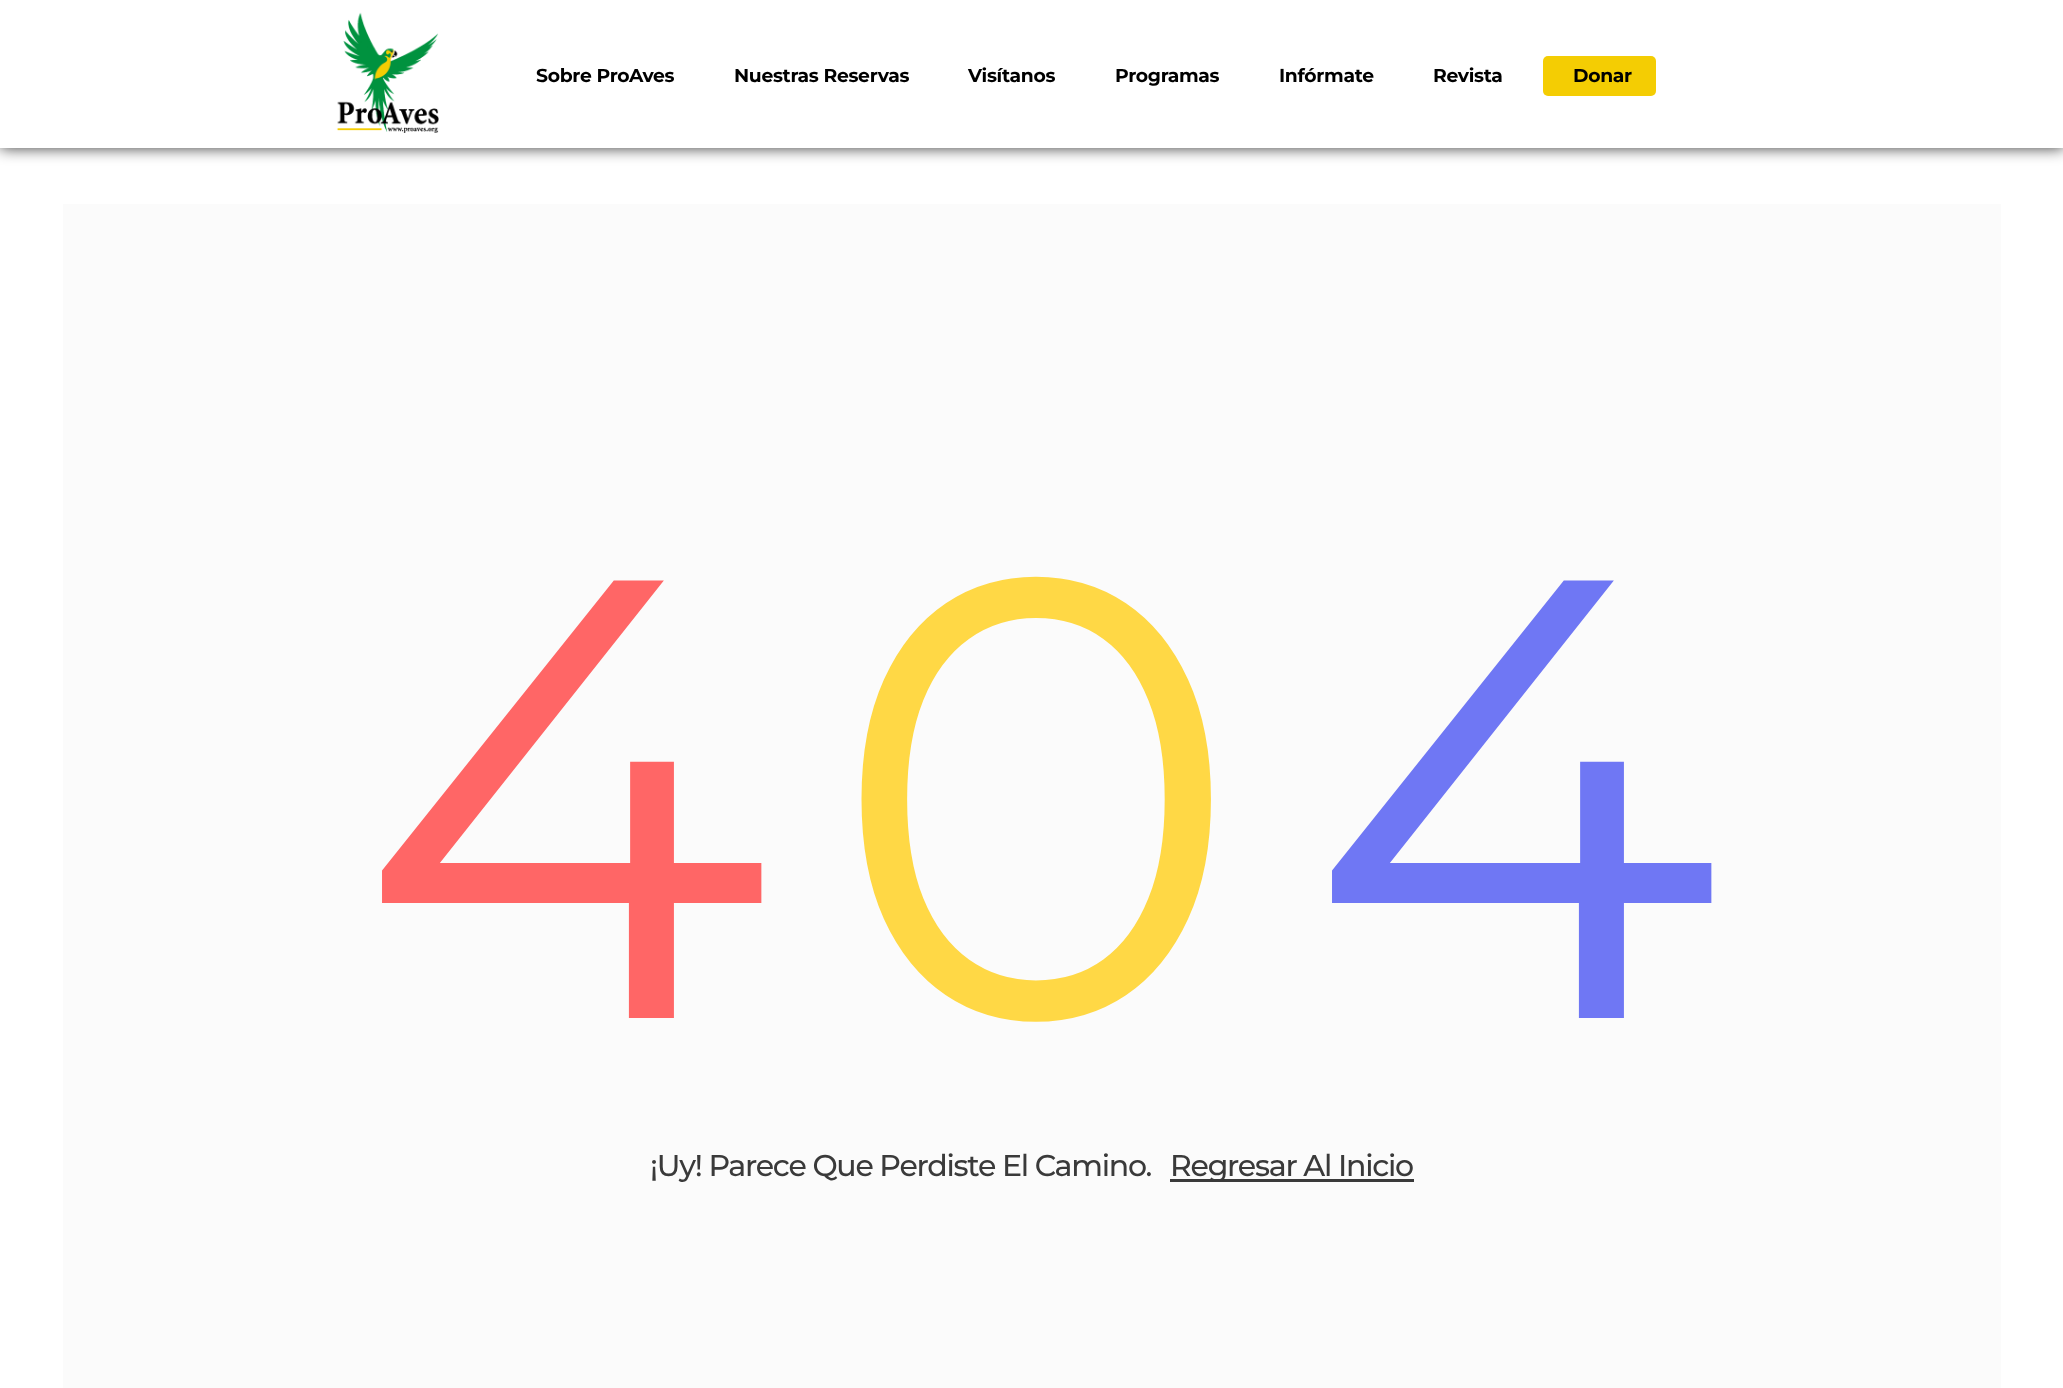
<!DOCTYPE html>
<meta charset="utf-8">
<style>body { margin: 0 } canvas { display: block }</style>
<canvas id="canvas" width="2063" height="1388"></canvas>
<img id="img1" src="images/1.png" hidden>
<script>
window.onload = function () {
    const canvas = document.getElementById('canvas');
    const context = canvas.getContext('2d');
    context.miterLimit = 4;
    context.fontKerning = 'normal';

    context.fillStyle = 'rgb(251, 251, 251)';
    context.fillRect(0, 0, 2063, 1388);
    context.fillStyle = 'rgb(255, 255, 255)';
    context.fillRect(63, 148, 1938, 56);
    context.fillRect(2001, 148, 62, 1240);
    context.fillRect(0, 148, 63, 1240);
    context.fillStyle = 'rgba(0, 0, 0, 0.78)';
    context.filter = 'blur(7.5px)';
    context.beginPath();
    context.rect(0, 0, 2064, 148);
    context.fill();
    context.filter = 'none';
    context.fillStyle = 'rgb(255, 255, 255)';
    context.fillRect(0, 0, 2063, 148);
    context.drawImage(document.getElementById('img1'), 336, 12, 103, 121);
    context.fillStyle = 'rgb(244, 205, 3)';
    context.beginPath();
    context.roundRect(1543, 56, 113, 40, 5);
    context.fill();
    context.fillStyle = 'rgb(58, 58, 58)';
    context.fillRect(1170, 1179, 244, 3);
    context.letterSpacing = '-0.3px';
    context.font = 'bold 18.75px Montserrat';
    context.fillStyle = 'rgb(0, 0, 0)';
    context.fillText('Sobre ProAves', 536, 82);
    context.fillText('Nuestras Reservas', 734, 82);
    context.fillText('Visítanos', 968, 82);
    context.fillText('Programas', 1115, 82);
    context.fillText('Infórmate', 1279, 82);
    context.fillText('Revista', 1433, 82);
    context.fillText('Donar', 1573, 82);
    context.letterSpacing = '-26px';
    context.font = '625px Montserrat';
    context.fillStyle = 'rgb(255, 102, 102)';
    context.fillText('4', 357, 1018);
    context.fillStyle = 'rgb(255, 216, 69)';
    context.fillText('0', 829, 1018);
    context.fillStyle = 'rgb(111, 119, 244)';
    context.fillText('4', 1307, 1018);
    context.letterSpacing = '-1.25px';
    context.font = '500 30px Montserrat';
    context.fillStyle = 'rgb(58, 58, 58)';
    context.fillText('¡Uy! Parece Que Perdiste El Camino.', 650, 1176);
    context.fillText('Regresar Al Inicio', 1170, 1176);
};
</script>
